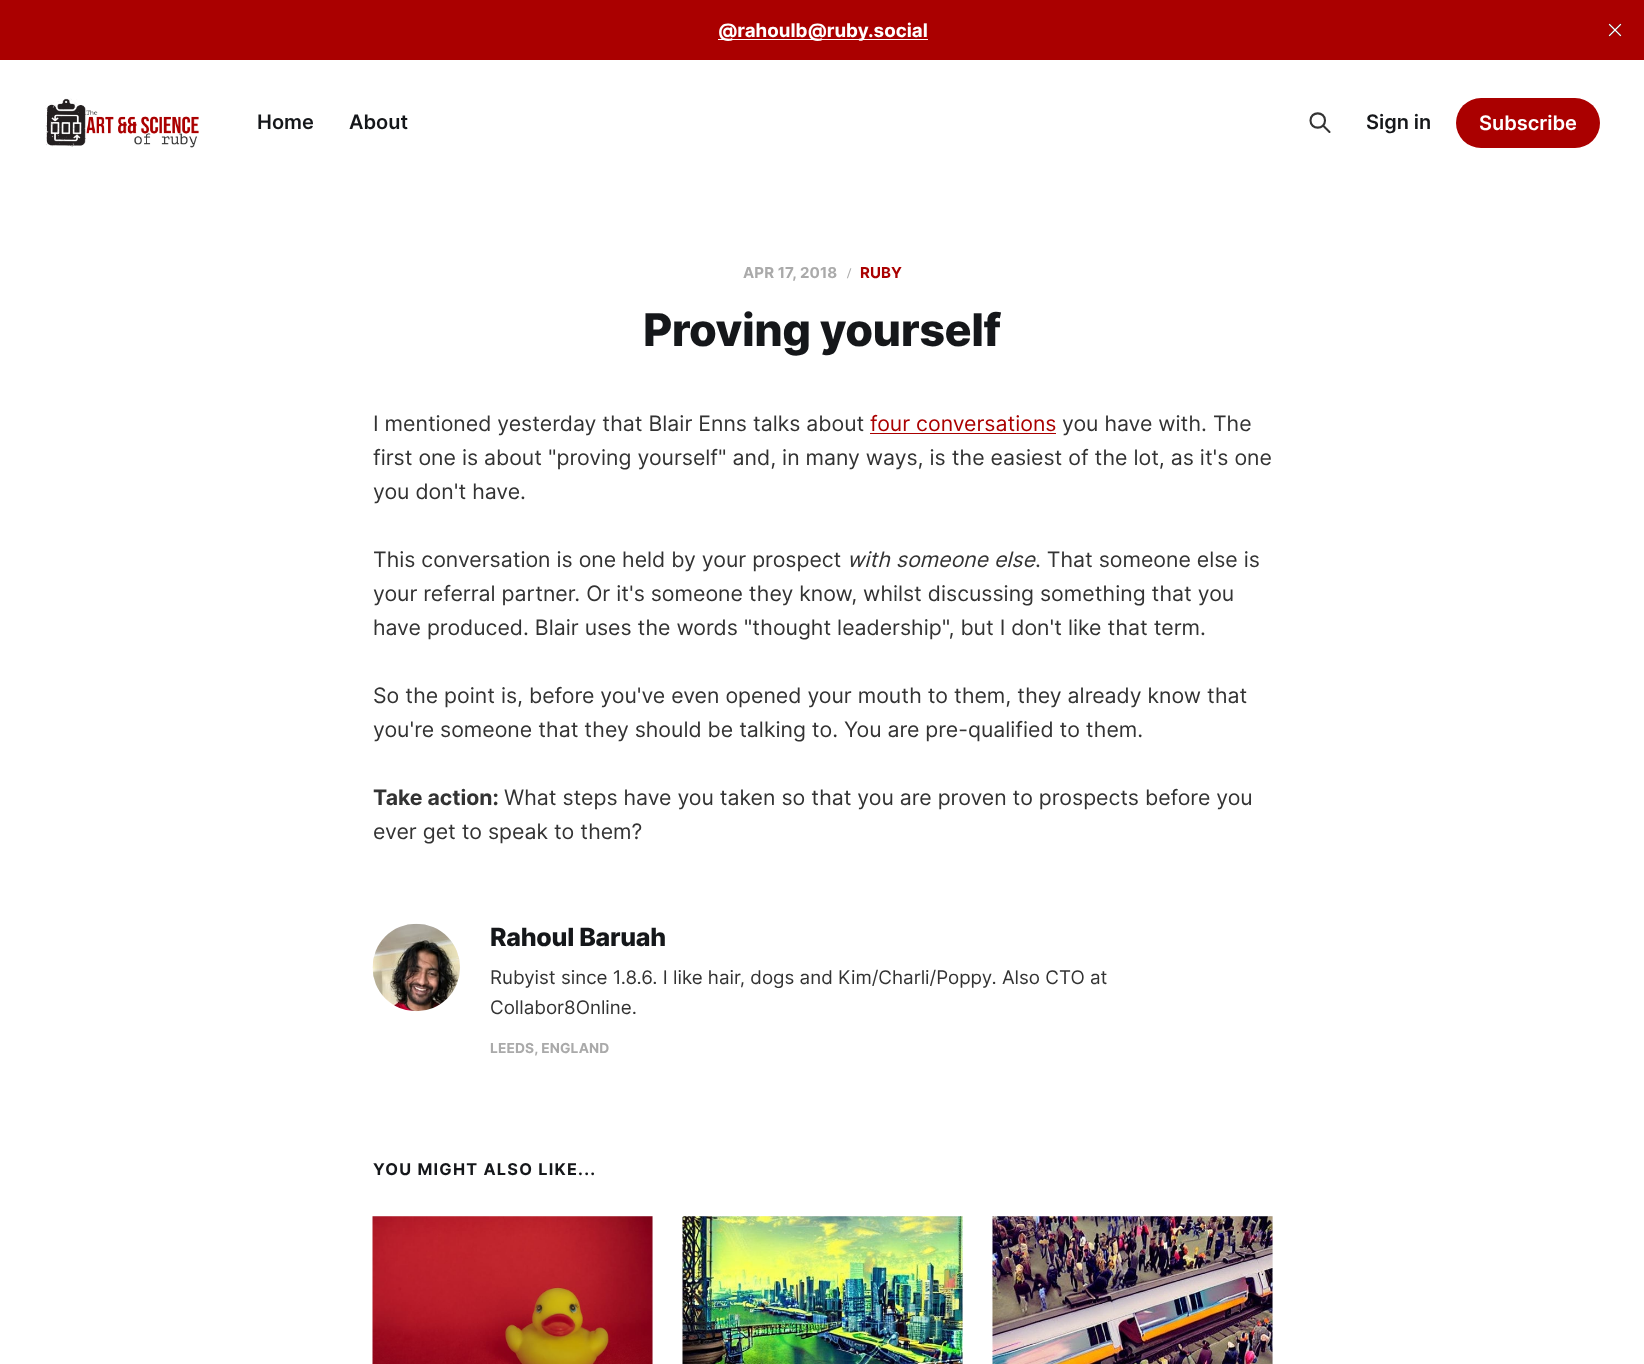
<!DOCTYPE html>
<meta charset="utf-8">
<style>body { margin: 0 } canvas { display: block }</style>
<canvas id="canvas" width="1644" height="1364"></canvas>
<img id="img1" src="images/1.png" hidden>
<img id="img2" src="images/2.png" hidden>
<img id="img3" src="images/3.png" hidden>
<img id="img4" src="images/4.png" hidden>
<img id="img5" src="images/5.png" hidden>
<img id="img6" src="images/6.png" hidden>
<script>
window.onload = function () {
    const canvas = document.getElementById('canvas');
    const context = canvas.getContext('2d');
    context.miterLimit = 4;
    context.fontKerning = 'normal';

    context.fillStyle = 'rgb(255, 255, 255)';
    context.fillRect(0, 0, 1644, 1364);
    context.fillStyle = 'rgb(170, 0, 0)';
    context.fillRect(0, 0, 1644, 60);
    context.fillStyle = 'rgb(255, 255, 255)';
    context.fillRect(718, 39, 210, 1);
    context.drawImage(document.getElementById('img1'), 1608, 23, 14, 14);
    context.drawImage(document.getElementById('img2'), 45, 98, 154, 50);
    context.beginPath();
    context.moveTo(1329.5, 132);
    context.lineTo(1323, 125.5);
    context.moveTo(1325, 120.5);
    context.bezierCurveTo(1325, 130, 1310.5, 130, 1310.5, 120.5);
    context.bezierCurveTo(1310.5, 111, 1325, 111, 1325, 120.5);
    context.closePath();
    context.strokeStyle = 'rgb(51, 51, 51)';
    context.lineWidth = 2.1;
    context.lineCap = 'round';
    context.lineJoin = 'round';
    context.stroke();
    context.fillStyle = 'rgb(170, 0, 0)';
    context.beginPath();
    context.roundRect(1456, 98, 144, 50, 25);
    context.fill();
    context.fillRect(870, 433, 186, 1);
    context.fillStyle = 'rgb(241, 241, 241)';
    context.beginPath();
    context.arc(416.5, 967.5, 43.5, 0, 2 * Math.PI);
    context.fill();
    context.drawImage(document.getElementById('img3'), 372, 923, 88, 89);
    context.fillRect(373, 1216, 280, 148);
    context.drawImage(document.getElementById('img4'), 372, 1216, 281, 148);
    context.fillRect(683, 1216, 280, 148);
    context.drawImage(document.getElementById('img5'), 682, 1216, 281, 148);
    context.fillRect(993, 1216, 280, 148);
    context.drawImage(document.getElementById('img6'), 992, 1216, 281, 148);
    context.font = 'bold 18.75px Inter';
    context.fillStyle = 'rgb(255, 255, 255)';
    context.fillText('@rahoulb@ruby.social', 718, 37);
    context.font = '600 20px Inter';
    context.fillStyle = 'rgb(21, 23, 26)';
    context.fillText('Home', 257, 129);
    context.fillText('About', 349, 129);
    context.fillText('Sign in', 1366, 129);
    context.fillStyle = 'rgb(255, 255, 255)';
    context.fillText('Subscribe', 1479, 130);
    context.letterSpacing = '0.1px';
    context.font = 'bold 15px Inter';
    context.fillStyle = 'rgb(170, 170, 170)';
    context.fillText('APR 17, 2018', 743, 278);
    context.font = 'bold 15px Liberation Serif';
    context.fillText('/', 847, 278);
    context.font = 'bold 15px Inter';
    context.fillStyle = 'rgb(170, 0, 0)';
    context.fillText('RUBY', 860, 278);
    context.letterSpacing = '-0.5px';
    context.font = '800 45px Inter';
    context.fillStyle = 'rgb(21, 23, 26)';
    context.fillText('Proving yourself', 643, 346);
    context.letterSpacing = '0px';
    context.font = '21.25px Inter';
    context.fillStyle = 'rgb(51, 51, 51)';
    context.fillText('I mentioned yesterday that Blair Enns talks about', 373, 431);
    context.fillStyle = 'rgb(170, 0, 0)';
    context.fillText('four conversations', 870, 431);
    context.fillStyle = 'rgb(51, 51, 51)';
    context.fillText('you have with. The', 1062, 431);
    context.fillText('first one is about "proving yourself" and, in many ways, is the easiest of the lot, as it\'s one', 373, 465);
    context.fillText('you don\'t have.', 373, 499);
    context.fillText('This conversation is one held by your prospect', 373, 567);
    context.font = 'italic 21.25px Inter';
    context.fillText('with someone else', 847, 567);
    context.font = '21.25px Inter';
    context.fillText('. That someone else is', 1035, 567);
    context.fillText('your referral partner. Or it\'s someone they know, whilst discussing something that you', 373, 601);
    context.fillText('have produced. Blair uses the words "thought leadership", but I don\'t like that term.', 373, 635);
    context.fillText('So the point is, before you\'ve even opened your mouth to them, they already know that', 373, 703);
    context.fillText('you\'re someone that they should be talking to. You are pre-qualified to them.', 373, 737);
    context.font = 'bold 21.25px Inter';
    context.fillText('Take action:', 373, 805);
    context.font = '21.25px Inter';
    context.fillText('What steps have you taken so that you are proven to prospects before you', 504, 805);
    context.fillText('ever get to speak to them?', 373, 839);
    context.letterSpacing = '-0.25px';
    context.font = '800 25px Inter';
    context.fillStyle = 'rgb(21, 23, 26)';
    context.fillText('Rahoul Baruah', 490, 946);
    context.letterSpacing = '0px';
    context.font = '18.75px Inter';
    context.fillStyle = 'rgb(51, 51, 51)';
    context.fillText('Rubyist since 1.8.6. I like hair, dogs and Kim/Charli/Poppy. Also CTO at', 490, 984);
    context.fillText('Collabor8Online.', 490, 1014);
    context.letterSpacing = '0.1px';
    context.font = 'bold 13.75px Inter';
    context.fillStyle = 'rgb(170, 170, 170)';
    context.fillText('LEEDS, ENGLAND', 490, 1053);
    context.letterSpacing = '1.25px';
    context.font = 'bold 16.25px Inter';
    context.fillStyle = 'rgb(21, 23, 26)';
    context.fillText('YOU MIGHT ALSO LIKE...', 373, 1175);
};
</script>
